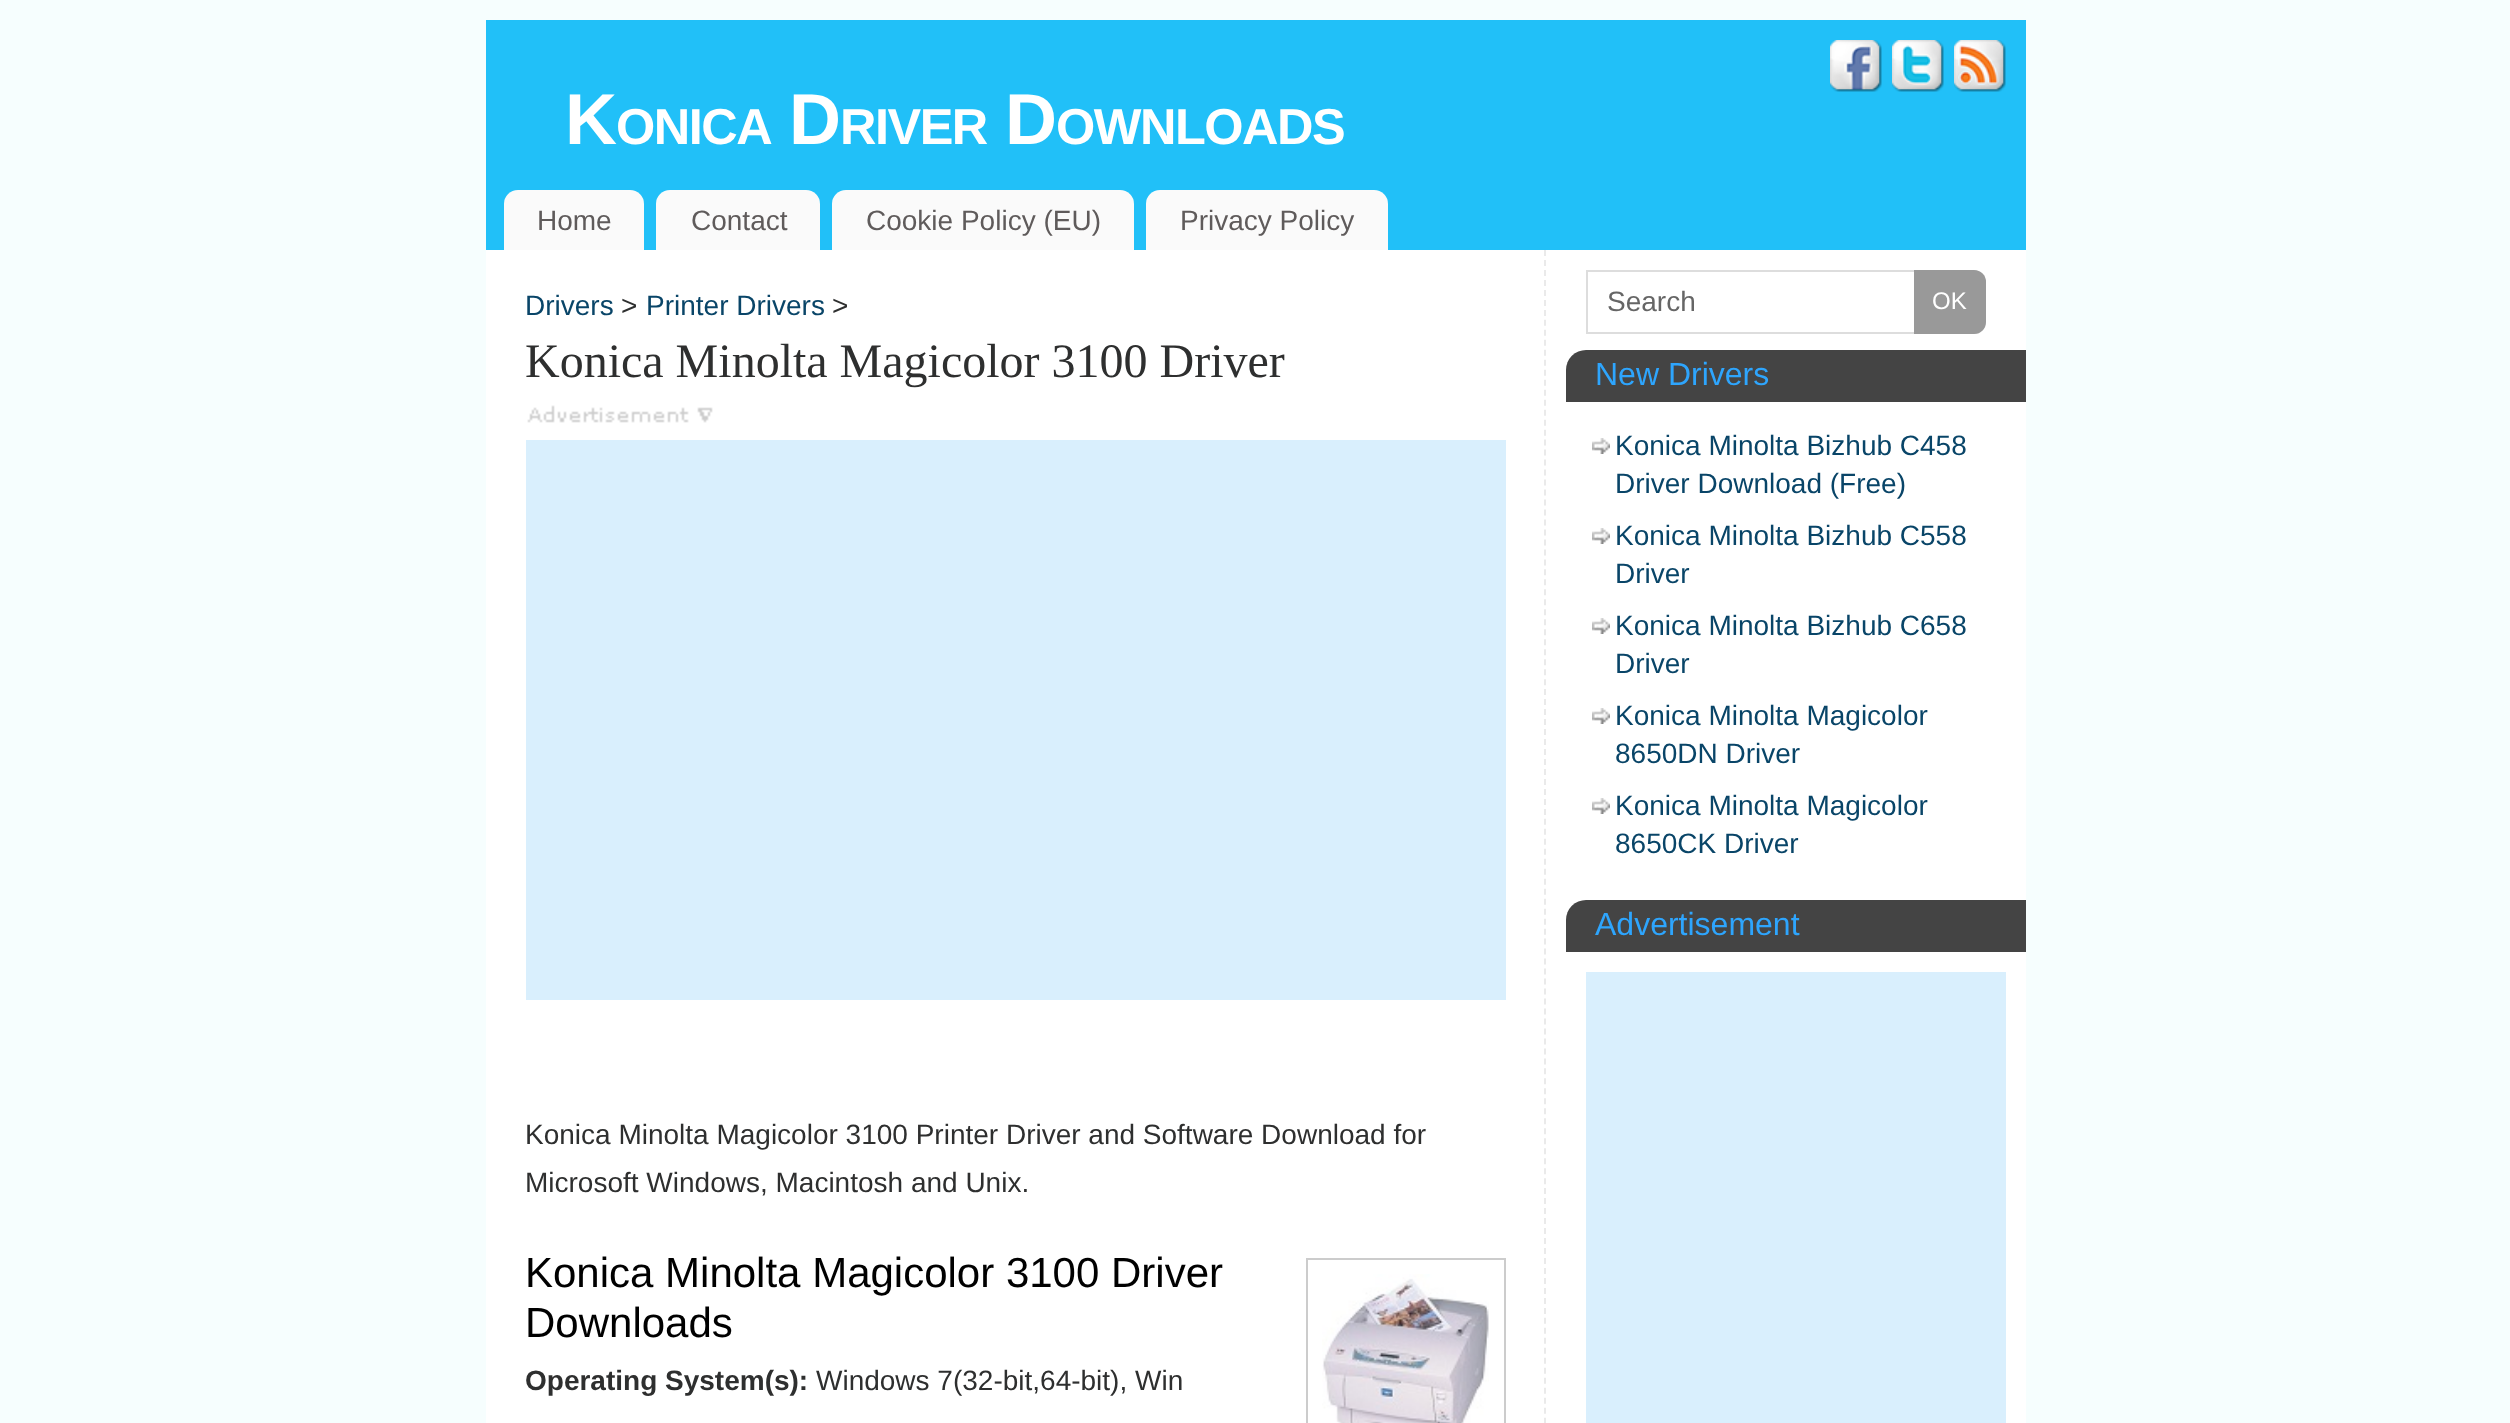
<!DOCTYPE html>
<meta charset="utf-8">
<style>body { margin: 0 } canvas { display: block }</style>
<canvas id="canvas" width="2510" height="1423"></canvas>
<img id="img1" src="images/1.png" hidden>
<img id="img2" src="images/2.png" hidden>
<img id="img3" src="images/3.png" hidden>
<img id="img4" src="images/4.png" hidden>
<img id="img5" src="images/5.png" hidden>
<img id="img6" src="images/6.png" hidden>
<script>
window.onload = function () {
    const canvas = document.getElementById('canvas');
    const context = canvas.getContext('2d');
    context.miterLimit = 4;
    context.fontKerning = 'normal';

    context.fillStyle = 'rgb(246, 254, 254)';
    context.fillRect(0, 0, 2510, 1423);
    context.fillStyle = 'rgb(33, 192, 248)';
    context.fillRect(486, 20, 1540, 230);
    context.drawImage(document.getElementById('img1'), 1830, 40, 52, 52);
    context.drawImage(document.getElementById('img2'), 1892, 40, 52, 52);
    context.drawImage(document.getElementById('img3'), 1954, 40, 52, 52);
    context.fillStyle = 'rgb(250, 250, 250)';
    context.beginPath();
    context.roundRect(504, 190, 140, 60, [14, 14, 0, 0]);
    context.fill();
    context.beginPath();
    context.roundRect(656, 190, 164, 60, [14, 14, 0, 0]);
    context.fill();
    context.beginPath();
    context.roundRect(832, 190, 302, 60, [14, 14, 0, 0]);
    context.fill();
    context.beginPath();
    context.roundRect(1146, 190, 242, 60, [14, 14, 0, 0]);
    context.fill();
    context.fillStyle = 'rgb(255, 255, 255)';
    context.fillRect(486, 250, 1540, 1173);
    context.drawImage(document.getElementById('img4'), 527, 405, 186, 18);
    context.fillStyle = 'rgb(217, 239, 253)';
    context.fillRect(526, 440, 980, 560);
    context.strokeStyle = 'rgb(204, 204, 204)';
    context.lineWidth = 2;
    context.strokeRect(1307, 1259, 198, 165);
    context.drawImage(document.getElementById('img5'), 1322, 1274, 167, 149);
    context.beginPath();
    context.moveTo(1545, 250);
    context.lineTo(1545, 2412);
    context.strokeStyle = 'rgb(234, 234, 234)';
    context.setLineDash([6, 3.98]);
    context.stroke();
    context.beginPath();
    context.roundRect(1587, 271, 398, 62, [0, 11, 11, 0]);
    context.strokeStyle = 'rgb(221, 221, 221)';
    context.setLineDash([]);
    context.stroke();
    context.fillStyle = 'rgb(153, 153, 153)';
    context.beginPath();
    context.roundRect(1914, 270, 72, 64, [0, 12, 12, 0]);
    context.fill();
    context.fillStyle = 'rgb(68, 68, 68)';
    context.beginPath();
    context.roundRect(1566, 350, 460, 52, [20, 0, 0, 0]);
    context.fill();
    context.drawImage(document.getElementById('img6'), 1592, 438, 18, 16);
    context.drawImage(document.getElementById('img6'), 1592, 528, 18, 16);
    context.drawImage(document.getElementById('img6'), 1592, 618, 18, 16);
    context.drawImage(document.getElementById('img6'), 1592, 708, 18, 16);
    context.drawImage(document.getElementById('img6'), 1592, 798, 18, 16);
    context.beginPath();
    context.roundRect(1566, 900, 460, 52, [20, 0, 0, 0]);
    context.fill();
    context.fillStyle = 'rgb(217, 239, 253)';
    context.fillRect(1586, 972, 420, 451);
    context.letterSpacing = '-1.5px';
    context.font = 'bold 72px Liberation Sans';
    context.fillStyle = 'rgb(255, 255, 255)';
    context.fillText('K', 565, 144);
    context.font = 'bold 50.5px Liberation Sans';
    context.fillText('ONICA', 616, 144);
    context.font = 'bold 72px Liberation Sans';
    context.fillText('D', 789, 144);
    context.font = 'bold 50.5px Liberation Sans';
    context.fillText('RIVER', 840, 144);
    context.font = 'bold 72px Liberation Sans';
    context.fillText('D', 1005, 144);
    context.font = 'bold 50.5px Liberation Sans';
    context.fillText('OWNLOADS', 1056, 144);
    context.letterSpacing = '0px';
    context.font = '28px Liberation Sans';
    context.fillStyle = 'rgb(95, 91, 91)';
    context.fillText('Home', 537, 230);
    context.fillText('Contact', 691, 230);
    context.fillText('Cookie Policy (EU)', 866, 230);
    context.fillText('Privacy Policy', 1180, 230);
    context.fillStyle = 'rgb(9, 69, 104)';
    context.fillText('Drivers', 525, 315);
    context.fillStyle = 'rgb(46, 47, 47)';
    context.fillText('>', 621, 315);
    context.fillStyle = 'rgb(9, 69, 104)';
    context.fillText('Printer Drivers', 646, 315);
    context.fillStyle = 'rgb(46, 47, 47)';
    context.fillText('>', 832, 315);
    context.font = '48px Liberation Serif';
    context.fillText('Konica Minolta Magicolor 3100 Driver', 525, 377);
    context.font = '28px Liberation Sans';
    context.fillText('Konica Minolta Magicolor 3100 Printer Driver and Software Download for', 525, 1144);
    context.fillText('Microsoft Windows, Macintosh and Unix.', 525, 1192);
    context.font = '42px Liberation Sans';
    context.fillStyle = 'rgb(0, 0, 0)';
    context.fillText('Konica Minolta Magicolor 3100 Driver', 525, 1287);
    context.fillText('Downloads', 525, 1337);
    context.font = 'bold 28px Liberation Sans';
    context.fillStyle = 'rgb(46, 47, 47)';
    context.fillText('Operating System(s):', 525, 1390);
    context.font = '28px Liberation Sans';
    context.fillText('Windows 7(32-bit,64-bit), Win', 816, 1390);
    context.fillStyle = 'rgb(102, 102, 102)';
    context.fillText('Search', 1607, 311);
    context.font = '24px Liberation Sans';
    context.fillStyle = 'rgb(255, 255, 255)';
    context.fillText('OK', 1932, 309);
    context.font = '32px Liberation Sans';
    context.fillStyle = 'rgb(46, 165, 253)';
    context.fillText('New Drivers', 1595, 385);
    context.font = '28px Liberation Sans';
    context.fillStyle = 'rgb(9, 69, 104)';
    context.fillText('Konica Minolta Bizhub C458', 1615, 455);
    context.fillText('Driver Download (Free)', 1615, 493);
    context.fillText('Konica Minolta Bizhub C558', 1615, 545);
    context.fillText('Driver', 1615, 583);
    context.fillText('Konica Minolta Bizhub C658', 1615, 635);
    context.fillText('Driver', 1615, 673);
    context.fillText('Konica Minolta Magicolor', 1615, 725);
    context.fillText('8650DN Driver', 1615, 763);
    context.fillText('Konica Minolta Magicolor', 1615, 815);
    context.fillText('8650CK Driver', 1615, 853);
    context.font = '32px Liberation Sans';
    context.fillStyle = 'rgb(46, 165, 253)';
    context.fillText('Advertisement', 1595, 935);
};
</script>
